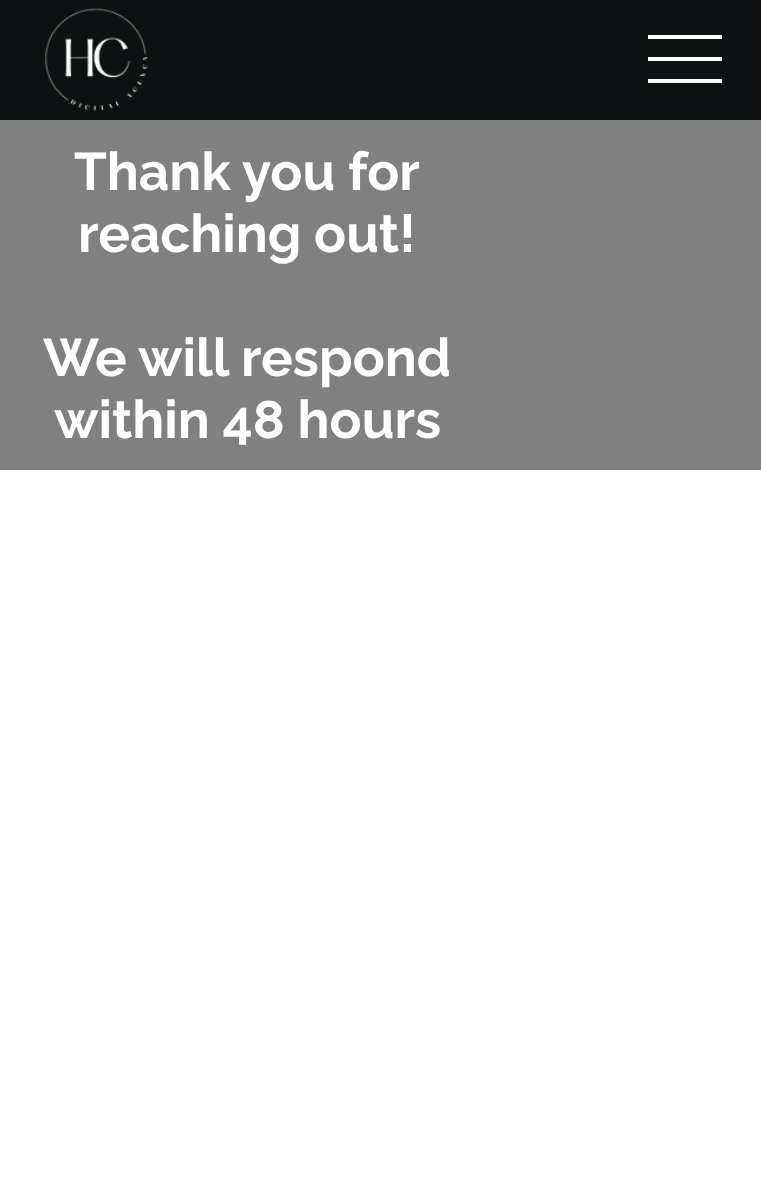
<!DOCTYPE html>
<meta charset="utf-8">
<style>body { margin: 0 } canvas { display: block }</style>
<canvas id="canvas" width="761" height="1199"></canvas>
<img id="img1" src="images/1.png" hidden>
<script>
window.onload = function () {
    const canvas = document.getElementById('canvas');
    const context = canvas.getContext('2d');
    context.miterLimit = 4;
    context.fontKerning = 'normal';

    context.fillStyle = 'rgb(255, 255, 255)';
    context.fillRect(0, 0, 761, 1199);
    context.fillStyle = 'rgb(14, 17, 17)';
    context.fillRect(0, 0, 761, 120);
    context.drawImage(document.getElementById('img1'), 45, 8, 103, 103);
    context.fillStyle = 'rgb(255, 255, 255)';
    context.fillRect(648, 35, 74, 4);
    context.fillRect(648, 57, 74, 4);
    context.fillRect(648, 79, 74, 4);
    context.fillStyle = 'rgb(128, 128, 128)';
    context.fillRect(0, 120, 761, 350);
    context.font = 'bold 53px Raleway';
    context.fillStyle = 'rgb(255, 255, 255)';
    context.fillText('Thank you for', 74, 190);
    context.fillText('reaching out!', 78, 252);
    context.fillText('We will respond', 43, 376);
    context.fillText('within 48 hours', 54, 438);
};
</script>
